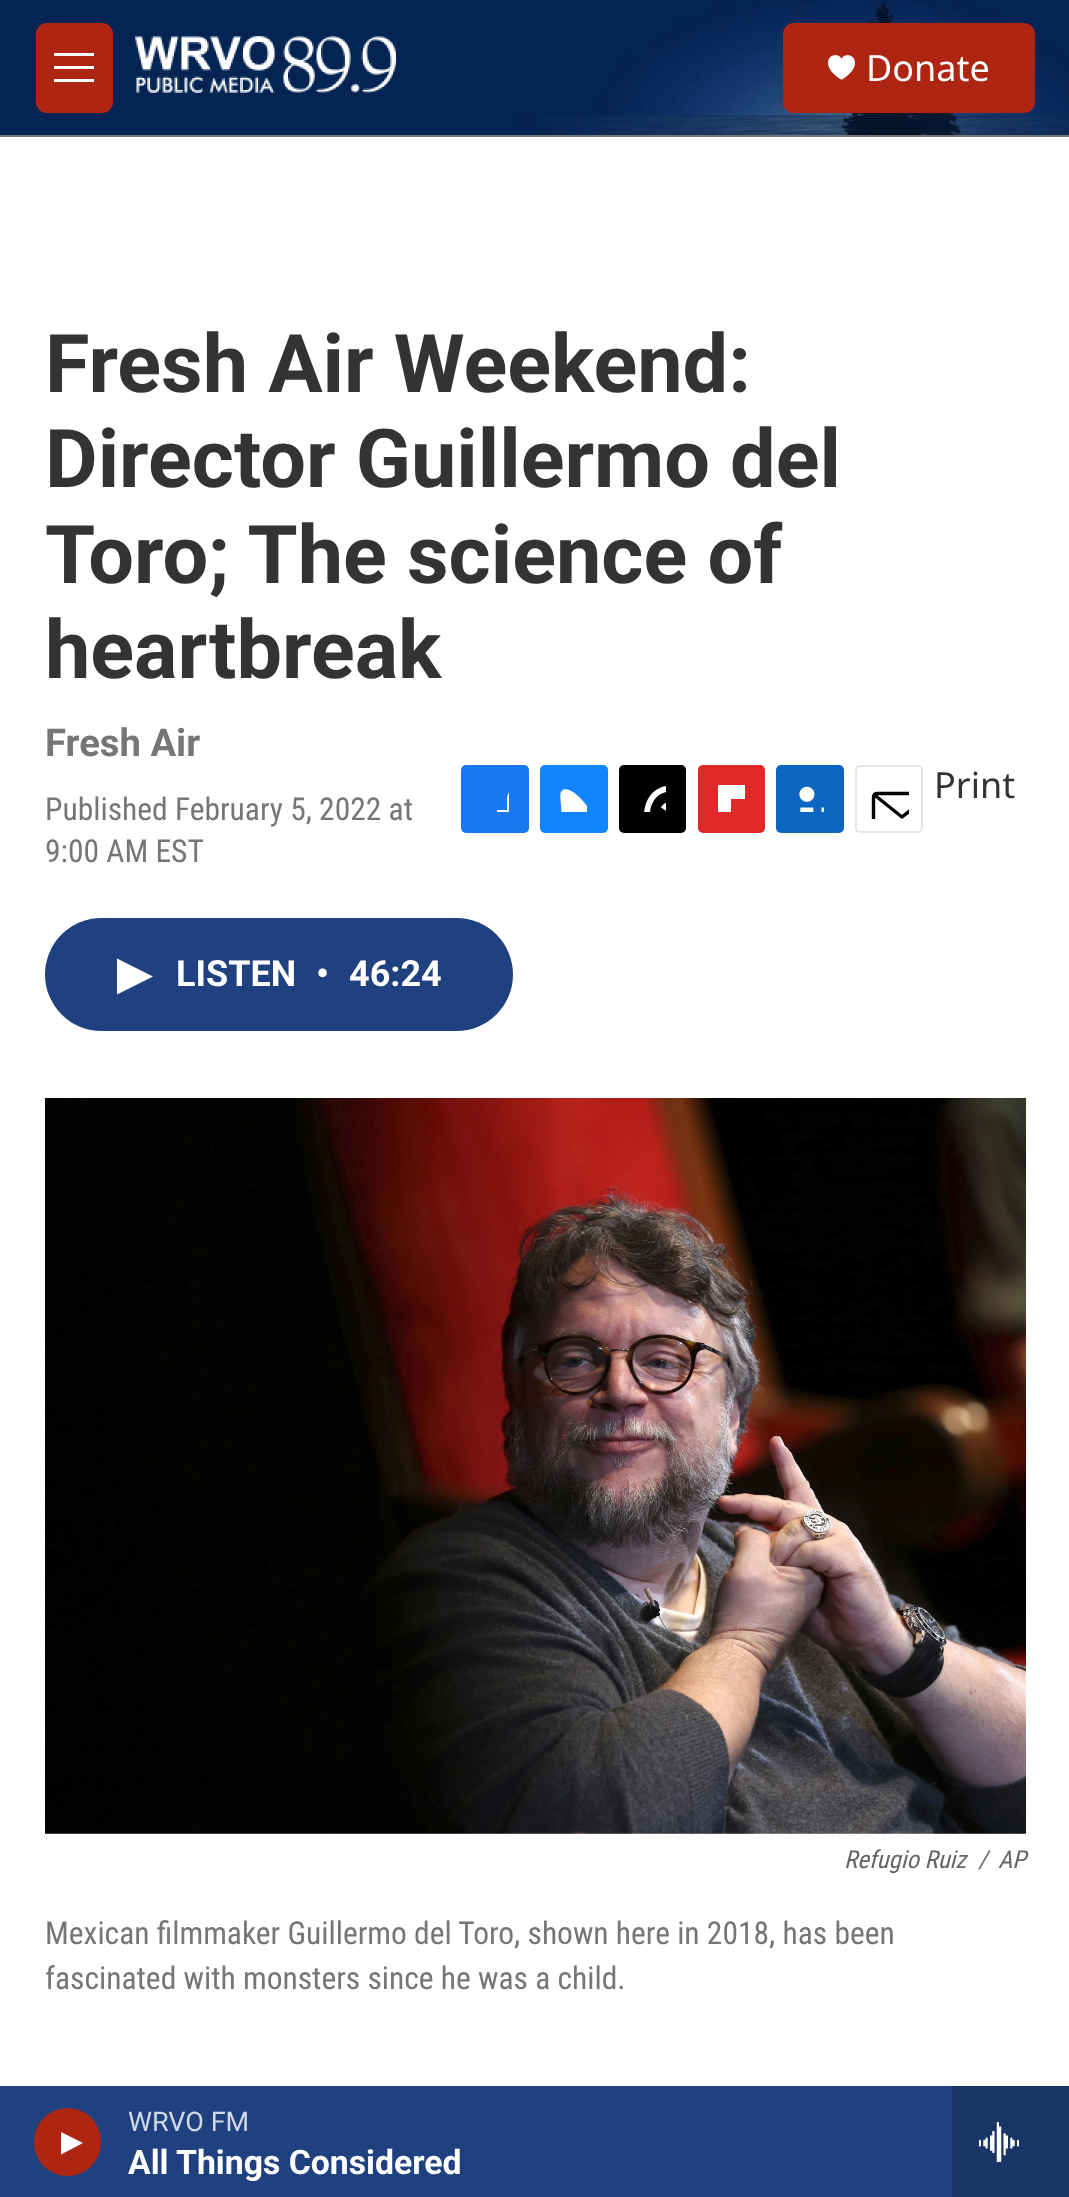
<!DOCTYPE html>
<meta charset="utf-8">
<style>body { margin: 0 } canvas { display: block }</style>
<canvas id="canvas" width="1069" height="2197"></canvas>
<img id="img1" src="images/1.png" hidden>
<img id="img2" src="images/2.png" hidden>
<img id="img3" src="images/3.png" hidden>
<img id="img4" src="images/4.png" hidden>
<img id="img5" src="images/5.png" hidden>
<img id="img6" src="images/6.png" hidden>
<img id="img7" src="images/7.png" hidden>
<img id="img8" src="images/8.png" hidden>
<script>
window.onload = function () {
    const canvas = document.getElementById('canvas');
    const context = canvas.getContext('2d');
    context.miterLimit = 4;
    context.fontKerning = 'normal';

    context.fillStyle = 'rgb(255, 255, 255)';
    context.fillRect(0, 0, 1069, 2197);
    context.fillStyle = 'rgb(122, 117, 117)';
    context.fillRect(0, 135, 1069, 2);
    context.drawImage(document.getElementById('img1'), 0, 0, 1069, 135);
    context.fillStyle = 'rgb(174, 37, 18)';
    context.beginPath();
    context.roundRect(36, 23, 77, 90, 11);
    context.fill();
    context.fillStyle = 'rgb(255, 255, 255)';
    context.beginPath();
    context.moveTo(54, 69);
    context.lineTo(54, 66);
    context.lineTo(94, 66);
    context.lineTo(94, 69);
    context.closePath();
    context.moveTo(54, 56);
    context.lineTo(54, 53);
    context.lineTo(94, 53);
    context.lineTo(94, 56);
    context.closePath();
    context.moveTo(54, 82);
    context.lineTo(54, 79);
    context.lineTo(94, 79);
    context.lineTo(94, 82);
    context.closePath();
    context.fill('evenodd');
    context.drawImage(document.getElementById('img2'), 135, 36, 261, 57);
    context.fillStyle = 'rgb(174, 37, 18)';
    context.beginPath();
    context.roundRect(783, 23, 252, 90, 11);
    context.fill();
    context.drawImage(document.getElementById('img3'), 828, 55, 27, 25);
    context.fillStyle = 'rgb(31, 65, 128)';
    context.fillRect(0, 2086, 952, 111);
    context.fillStyle = 'rgb(174, 37, 18)';
    context.beginPath();
    context.roundRect(34, 2108, 67, 68, 33.5);
    context.fill();
    context.fillStyle = 'rgb(255, 255, 255)';
    context.beginPath();
    context.moveTo(61, 2132);
    context.lineTo(83, 2143);
    context.lineTo(61, 2154.5);
    context.closePath();
    context.fill();
    context.fillStyle = 'rgb(25, 52, 102)';
    context.fillRect(952, 2086, 117, 111);
    context.drawImage(document.getElementById('img4'), 979, 2122, 40, 40);
    context.fillStyle = 'rgb(23, 120, 242)';
    context.beginPath();
    context.roundRect(461, 765, 68, 68, 5);
    context.fill();
    context.save();
    context.beginPath();
    context.rect(482, 785, 27, 27);
    context.clip();
    context.fillStyle = 'rgb(255, 255, 255)';
    context.beginPath();
    context.moveTo(519, 833);
    context.lineTo(507, 833);
    context.lineTo(507, 821);
    context.lineTo(497, 821);
    context.lineTo(497, 810);
    context.lineTo(507, 810);
    context.lineTo(507, 798);
    context.bezierCurveTo(509, 786, 520, 785, 529, 787);
    context.lineTo(529, 797);
    context.bezierCurveTo(517, 797, 519, 799, 519, 810);
    context.lineTo(529, 810);
    context.lineTo(528, 821);
    context.lineTo(519, 821);
    context.closePath();
    context.fill();
    context.restore();
    context.fillStyle = 'rgb(17, 133, 254)';
    context.beginPath();
    context.roundRect(540, 765, 68, 68, 5);
    context.fill();
    context.drawImage(document.getElementById('img5'), 560, 789, 27, 23);
    context.fillStyle = 'rgb(0, 0, 0)';
    context.beginPath();
    context.roundRect(619, 765, 67, 68, 5);
    context.fill();
    context.drawImage(document.getElementById('img6'), 644, 786, 22, 26);
    context.fillStyle = 'rgb(225, 40, 40)';
    context.beginPath();
    context.roundRect(698, 765, 67, 68, 5);
    context.fill();
    context.save();
    context.beginPath();
    context.rect(718, 785, 27, 27);
    context.clip();
    context.fillStyle = 'rgb(255, 255, 255)';
    context.beginPath();
    context.moveTo(718, 785);
    context.lineTo(718, 833);
    context.lineTo(731, 833);
    context.lineTo(731, 799);
    context.lineTo(765, 799);
    context.lineTo(765, 785);
    context.closePath();
    context.moveTo(765, 812);
    context.lineTo(758, 812);
    context.lineTo(758, 826);
    context.lineTo(745, 826);
    context.lineTo(745, 833);
    context.bezierCurveTo(768, 833, 765, 835, 765, 812);
    context.closePath();
    context.fill('evenodd');
    context.restore();
    context.fillStyle = 'rgb(10, 102, 193)';
    context.beginPath();
    context.roundRect(776, 765, 68, 68, 5);
    context.fill();
    context.drawImage(document.getElementById('img7'), 799, 786, 25, 26);
    context.beginPath();
    context.roundRect(856, 766, 66, 66, 4);
    context.strokeStyle = 'rgb(230, 230, 230)';
    context.lineWidth = 2;
    context.stroke();
    context.save();
    context.beginPath();
    context.rect(869, 779, 40, 40);
    context.clip();
    context.beginPath();
    context.moveTo(931, 828);
    context.bezierCurveTo(931, 830, 929.5, 832, 927, 832);
    context.lineTo(877.5, 832);
    context.bezierCurveTo(875, 832, 873.5, 830, 873.5, 828);
    context.lineTo(873.5, 797.5);
    context.bezierCurveTo(873.5, 795, 875, 793.5, 877.5, 793.5);
    context.lineTo(927, 793.5);
    context.bezierCurveTo(929.5, 793.5, 931, 795, 931, 797.5);
    context.closePath();
    context.moveTo(930, 795);
    context.lineTo(902, 817);
    context.lineTo(874.5, 795);
    context.strokeStyle = 'rgb(0, 0, 0)';
    context.lineWidth = 3.4;
    context.lineCap = 'round';
    context.lineJoin = 'round';
    context.stroke();
    context.restore();
    context.fillStyle = 'rgb(31, 65, 128)';
    context.beginPath();
    context.roundRect(45, 918, 468, 113, 56.5);
    context.fill();
    context.fillStyle = 'rgb(255, 255, 255)';
    context.beginPath();
    context.moveTo(117, 958.5);
    context.lineTo(153, 976.5);
    context.lineTo(117, 994.5);
    context.closePath();
    context.fill();
    context.drawImage(document.getElementById('img8'), 45, 1098, 981, 736);
    context.font = '36px Noto Sans';
    context.fillText('Donate', 866, 81);
    context.font = '27px Roboto';
    context.fillStyle = 'rgb(210, 217, 230)';
    context.fillText('WRVO FM', 128, 2131);
    context.font = 'bold 33.75px "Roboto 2"';
    context.fillStyle = 'rgb(255, 255, 255)';
    context.fillText('All Things Considered', 128, 2174);
    context.font = 'bold 81px Roboto';
    context.fillStyle = 'rgb(51, 51, 51)';
    context.fillText('Fresh Air Weekend:', 45, 392);
    context.fillText('Director Guillermo del', 45, 487);
    context.fillText('Toro; The science of', 45, 583);
    context.fillText('heartbreak', 45, 678);
    context.font = 'bold 38.25px Roboto';
    context.fillStyle = 'rgb(118, 118, 118)';
    context.fillText('Fresh Air', 45, 756);
    context.font = '31.5px Roboto Condensed';
    context.fillText('Published February 5, 2022 at', 45, 820);
    context.fillText('9:00 AM EST', 45, 862);
    context.font = '36px Noto Sans';
    context.fillStyle = 'rgb(51, 51, 51)';
    context.fillText('Print', 934, 798);
    context.font = 'bold 36px "Roboto 2"';
    context.fillStyle = 'rgb(255, 255, 255)';
    context.fillText('LISTEN', 176, 986);
    context.fillText('•', 316, 986);
    context.fillText('46:24', 349, 986);
    context.font = 'italic 24.75px Roboto Condensed';
    context.fillStyle = 'rgb(102, 102, 102)';
    context.fillText('Refugio Ruiz', 844, 1868);
    context.fillText('/', 978, 1868);
    context.fillText('AP', 998, 1868);
    context.font = '31.5px Roboto Condensed';
    context.fillStyle = 'rgb(118, 118, 118)';
    context.fillText('Mexican filmmaker Guillermo del Toro, shown here in 2018, has been', 45, 1944);
    context.fillText('fascinated with monsters since he was a child.', 45, 1989);
};
</script>
